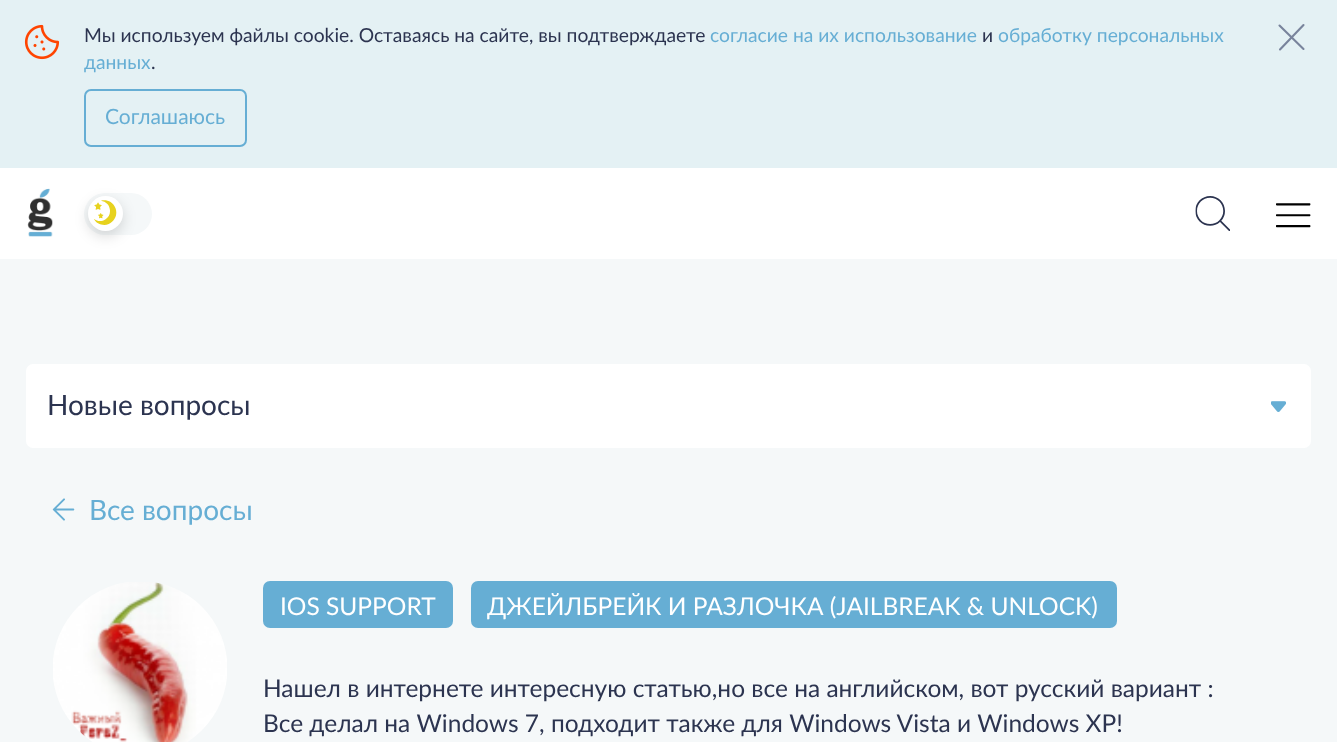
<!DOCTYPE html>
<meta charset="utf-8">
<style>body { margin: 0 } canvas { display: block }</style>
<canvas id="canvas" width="1337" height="742"></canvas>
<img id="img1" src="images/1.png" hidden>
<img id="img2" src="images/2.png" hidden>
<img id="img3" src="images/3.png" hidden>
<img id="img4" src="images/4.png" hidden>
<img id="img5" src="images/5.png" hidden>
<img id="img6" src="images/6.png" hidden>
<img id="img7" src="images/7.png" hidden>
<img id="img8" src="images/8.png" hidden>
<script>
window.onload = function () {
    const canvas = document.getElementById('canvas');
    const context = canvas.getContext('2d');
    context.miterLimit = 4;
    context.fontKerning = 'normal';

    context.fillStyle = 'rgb(245, 248, 249)';
    context.fillRect(0, 0, 1337, 742);
    context.fillStyle = 'rgb(228, 241, 244)';
    context.fillRect(0, 0, 1337, 168);
    context.drawImage(document.getElementById('img1'), 24, 24, 36, 36);
    context.beginPath();
    context.moveTo(1279.5, 25.5);
    context.lineTo(1303.5, 49);
    context.moveTo(1303.5, 25);
    context.lineTo(1280, 49.5);
    context.strokeStyle = 'rgb(121, 132, 156)';
    context.lineWidth = 2.1;
    context.lineCap = 'round';
    context.lineJoin = 'round';
    context.stroke();
    context.beginPath();
    context.roundRect(85, 90, 161, 56, 6);
    context.strokeStyle = 'rgb(102, 174, 212)';
    context.lineWidth = 2;
    context.lineJoin = 'miter';
    context.stroke();
    context.fillStyle = 'rgb(255, 255, 255)';
    context.fillRect(0, 168, 1337, 91);
    context.drawImage(document.getElementById('img2'), 27, 188, 26, 49);
    context.fillStyle = 'rgb(245, 248, 249)';
    context.beginPath();
    context.roundRect(84, 193, 68, 42, 21);
    context.fill();
    context.fillStyle = 'rgba(0, 0, 0, 0.15)';
    context.filter = 'blur(7px)';
    context.beginPath();
    context.roundRect(88, 201, 35, 35, 17.5);
    context.fill();
    context.filter = 'none';
    context.fillStyle = 'rgb(255, 255, 255)';
    context.beginPath();
    context.arc(105.5, 213.5, 17.5, 0, 2 * Math.PI);
    context.fill();
    context.drawImage(document.getElementById('img3'), 94, 200, 23, 25);
    context.drawImage(document.getElementById('img4'), 1195, 196, 35, 35);
    context.drawImage(document.getElementById('img5'), 1276, 203, 35, 25);
    context.beginPath();
    context.roundRect(26, 364, 1285, 84, 7);
    context.fill();
    context.drawImage(document.getElementById('img6'), 1271, 401, 15, 11);
    context.drawImage(document.getElementById('img7'), 52, 498, 23, 23);
    context.drawImage(document.getElementById('img8'), 53, 582, 174, 160);
    context.fillStyle = 'rgb(102, 174, 212)';
    context.beginPath();
    context.roundRect(263, 581, 190, 47, 7);
    context.fill();
    context.beginPath();
    context.roundRect(471, 581, 646, 47, 7);
    context.fill();
    context.font = '19.25px Lato';
    context.fillStyle = 'rgb(44, 52, 80)';
    context.fillText('Мы используем файлы cookie. Оставаясь на сайте, вы подтверждаете', 84, 42);
    context.fillStyle = 'rgb(102, 174, 212)';
    context.fillText('согласие на их использование', 710, 42);
    context.fillStyle = 'rgb(44, 52, 80)';
    context.fillText('и', 982, 42);
    context.fillStyle = 'rgb(102, 174, 212)';
    context.fillText('обработку персональных', 998, 42);
    context.fillText('данных', 84, 69);
    context.fillStyle = 'rgb(44, 52, 80)';
    context.fillText('.', 151, 69);
    context.font = '21px Lato';
    context.fillStyle = 'rgb(102, 174, 212)';
    context.fillText('Соглашаюсь', 105, 124);
    context.font = '28px Lato';
    context.fillStyle = 'rgb(44, 52, 80)';
    context.fillText('Новые вопросы', 47, 415);
    context.fillStyle = 'rgb(102, 174, 212)';
    context.fillText('Все вопросы', 89, 520);
    context.font = '24.5px Lato';
    context.fillStyle = 'rgb(255, 255, 255)';
    context.fillText('IOS SUPPORT', 280, 615);
    context.fillText('ДЖЕЙЛБРЕЙК И РАЗЛОЧКА (JAILBREAK & UNLOCK)', 487, 615);
    context.fillStyle = 'rgb(44, 52, 80)';
    context.fillText('Нашел в интернете интересную статью,но все на английском, вот русский вариант :', 263, 697);
    context.fillText('Все делал на Windows 7, подходит также для Windows Vista и Windows XP!', 263, 732);
};
</script>
